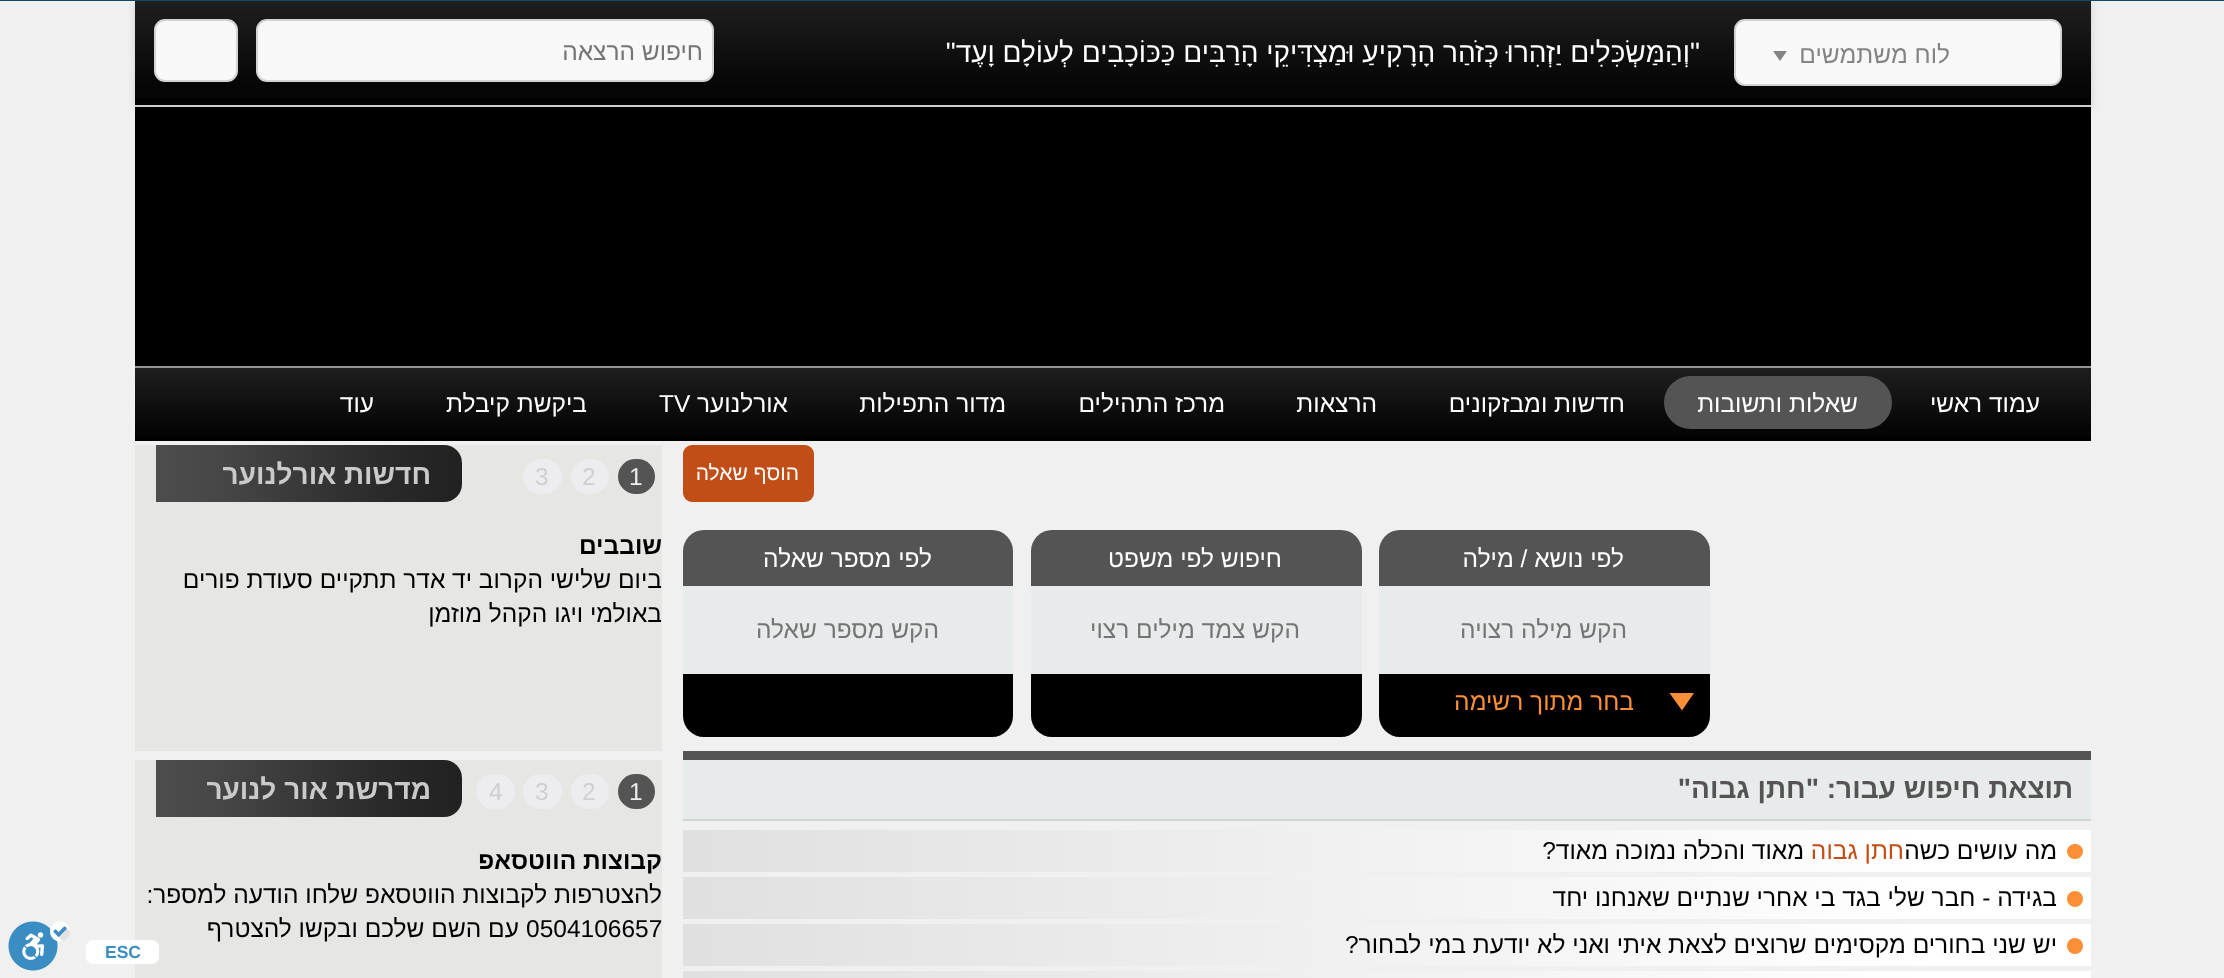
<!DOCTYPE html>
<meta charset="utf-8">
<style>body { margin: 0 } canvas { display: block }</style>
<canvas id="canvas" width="2224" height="978"></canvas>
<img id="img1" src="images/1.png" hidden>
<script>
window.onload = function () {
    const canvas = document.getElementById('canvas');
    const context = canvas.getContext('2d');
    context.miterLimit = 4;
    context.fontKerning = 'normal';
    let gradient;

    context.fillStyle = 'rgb(240, 240, 240)';
    context.fillRect(0, 0, 2224, 978);
    context.fillStyle = 'rgb(204, 204, 204)';
    context.filter = 'blur(3.5px)';
    context.beginPath();
    context.rect(135, 2, 1956, 107);
    context.fill();
    context.filter = 'none';
    gradient = context.createLinearGradient(1113, 0, 1113, 105);
    gradient.addColorStop(0, 'rgb(31, 31, 31)');
    gradient.addColorStop(0.81, 'rgb(6, 6, 6)');
    gradient.addColorStop(0.91, 'rgb(5, 5, 5)');
    gradient.addColorStop(0.96, 'rgb(1, 1, 1)');
    gradient.addColorStop(1, 'rgb(2, 2, 2)');
    context.fillStyle = gradient;
    context.fillRect(135, 1, 1956, 104);
    context.fillStyle = 'rgb(205, 205, 205)';
    context.fillRect(135, 105, 1956, 2);
    context.fillStyle = 'rgb(248, 248, 248)';
    context.beginPath();
    context.roundRect(1735, 20, 326, 65, 10);
    context.fill();
    context.strokeStyle = 'rgb(211, 211, 211)';
    context.lineWidth = 2;
    context.stroke();
    context.fillStyle = 'rgb(132, 132, 132)';
    context.beginPath();
    context.moveTo(1773, 51);
    context.lineTo(1787, 51);
    context.lineTo(1780, 61);
    context.closePath();
    context.fill();
    context.fillStyle = 'rgb(248, 248, 248)';
    context.beginPath();
    context.roundRect(257, 20, 456, 61, 10);
    context.fill();
    context.stroke();
    context.beginPath();
    context.roundRect(155, 20, 82, 61, 10);
    context.fill();
    context.stroke();
    context.fillStyle = 'rgb(0, 0, 0)';
    context.fillRect(135, 107, 1956, 259);
    gradient = context.createLinearGradient(1113, 367, 1113, 441);
    gradient.addColorStop(0, 'rgb(31, 31, 31)');
    gradient.addColorStop(0.81, 'rgb(6, 6, 6)');
    gradient.addColorStop(0.91, 'rgb(5, 5, 5)');
    gradient.addColorStop(0.96, 'rgb(1, 1, 1)');
    gradient.addColorStop(1, 'rgb(2, 2, 2)');
    context.fillStyle = gradient;
    context.fillRect(135, 368, 1956, 73);
    context.fillStyle = 'rgb(149, 147, 148)';
    context.fillRect(135, 366, 1956, 2);
    context.fillStyle = 'rgb(84, 84, 84)';
    context.beginPath();
    context.roundRect(1664, 376, 228, 53, 26.5);
    context.fill();
    context.fillStyle = 'rgb(193, 78, 22)';
    context.beginPath();
    context.roundRect(683, 445, 131, 57, 9);
    context.fill();
    context.fillStyle = 'rgb(84, 84, 84)';
    context.beginPath();
    context.roundRect(1379, 530, 331, 56, [21, 21, 0, 0]);
    context.fill();
    context.fillStyle = 'rgb(232, 235, 235)';
    context.fillRect(1379, 586, 331, 88);
    context.fillStyle = 'rgb(0, 0, 0)';
    context.beginPath();
    context.roundRect(1379, 674, 331, 63, [0, 0, 21, 21]);
    context.fill();
    context.fillStyle = 'rgb(250, 143, 55)';
    context.beginPath();
    context.moveTo(1669.5, 693);
    context.lineTo(1694, 693);
    context.lineTo(1682, 710.5);
    context.closePath();
    context.fill();
    context.fillStyle = 'rgb(84, 84, 84)';
    context.beginPath();
    context.roundRect(1031, 530, 331, 56, [21, 21, 0, 0]);
    context.fill();
    context.fillStyle = 'rgb(232, 235, 235)';
    context.fillRect(1031, 586, 331, 88);
    context.fillStyle = 'rgb(0, 0, 0)';
    context.beginPath();
    context.roundRect(1031, 674, 331, 63, [0, 0, 21, 21]);
    context.fill();
    context.fillStyle = 'rgb(84, 84, 84)';
    context.beginPath();
    context.roundRect(683, 530, 330, 56, [21, 21, 0, 0]);
    context.fill();
    context.fillStyle = 'rgb(232, 235, 235)';
    context.fillRect(683, 586, 330, 88);
    context.fillStyle = 'rgb(0, 0, 0)';
    context.beginPath();
    context.roundRect(683, 674, 330, 63, [0, 0, 21, 21]);
    context.fill();
    context.fillStyle = 'rgb(232, 235, 235)';
    context.fillRect(683, 760, 1408, 59);
    context.fillStyle = 'rgb(84, 84, 84)';
    context.fillRect(683, 751, 1408, 9);
    context.fillStyle = 'rgb(208, 214, 214)';
    context.fillRect(683, 819, 1408, 2);
    gradient = context.createLinearGradient(683, 851, 2091, 851);
    gradient.addColorStop(0, 'rgb(224, 224, 224)');
    gradient.addColorStop(0.88, 'rgb(255, 255, 255)');
    context.fillStyle = gradient;
    context.fillRect(683, 830, 1408, 42);
    context.fillStyle = 'rgb(250, 143, 55)';
    context.beginPath();
    context.roundRect(2067, 844, 16, 15, 7.5);
    context.fill();
    gradient = context.createLinearGradient(683, 898, 2091, 898);
    gradient.addColorStop(0, 'rgb(224, 224, 224)');
    gradient.addColorStop(0.88, 'rgb(255, 255, 255)');
    context.fillStyle = gradient;
    context.fillRect(683, 877, 1408, 42);
    context.fillStyle = 'rgb(250, 143, 55)';
    context.beginPath();
    context.arc(2075, 899, 8, 0, 2 * Math.PI);
    context.fill();
    gradient = context.createLinearGradient(683, 945, 2091, 945);
    gradient.addColorStop(0, 'rgb(224, 224, 224)');
    gradient.addColorStop(0.88, 'rgb(255, 255, 255)');
    context.fillStyle = gradient;
    context.fillRect(683, 924, 1408, 42);
    context.fillStyle = 'rgb(250, 143, 55)';
    context.beginPath();
    context.arc(2075, 946, 8, 0, 2 * Math.PI);
    context.fill();
    gradient = context.createLinearGradient(683, 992, 2091, 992);
    gradient.addColorStop(0, 'rgb(224, 224, 224)');
    gradient.addColorStop(0.88, 'rgb(255, 255, 255)');
    context.fillStyle = gradient;
    context.fillRect(683, 971, 1408, 7);
    context.fillStyle = 'rgb(230, 230, 229)';
    context.fillRect(135, 445, 527, 306);
    context.fillStyle = 'rgb(84, 84, 84)';
    context.beginPath();
    context.roundRect(618, 459, 37, 35, 17.5);
    context.fill();
    context.fillStyle = 'rgb(237, 237, 239)';
    context.beginPath();
    context.roundRect(571, 459, 38, 35, 17.5);
    context.fill();
    context.beginPath();
    context.roundRect(523, 459, 39, 35, 17.5);
    context.fill();
    gradient = context.createLinearGradient(156, 473, 462, 473);
    gradient.addColorStop(0, 'rgb(77, 77, 77)');
    gradient.addColorStop(0.22, 'rgb(70, 70, 70)');
    gradient.addColorStop(0.74, 'rgb(42, 42, 42)');
    gradient.addColorStop(1, 'rgb(33, 33, 33)');
    context.fillStyle = gradient;
    context.beginPath();
    context.roundRect(156, 445, 306, 57, [0, 18, 18, 0]);
    context.fill();
    context.fillStyle = 'rgb(230, 230, 229)';
    context.fillRect(135, 760, 527, 218);
    context.fillStyle = 'rgb(84, 84, 84)';
    context.beginPath();
    context.roundRect(618, 774, 37, 35, 17.5);
    context.fill();
    context.fillStyle = 'rgb(237, 237, 239)';
    context.beginPath();
    context.roundRect(571, 774, 38, 35, 17.5);
    context.fill();
    context.beginPath();
    context.roundRect(523, 774, 39, 35, 17.5);
    context.fill();
    context.beginPath();
    context.roundRect(476, 774, 39, 35, 17.5);
    context.fill();
    gradient = context.createLinearGradient(156, 788, 462, 788);
    gradient.addColorStop(0, 'rgb(77, 77, 77)');
    gradient.addColorStop(0.22, 'rgb(70, 70, 70)');
    gradient.addColorStop(0.74, 'rgb(42, 42, 42)');
    gradient.addColorStop(1, 'rgb(33, 33, 33)');
    context.fillStyle = gradient;
    context.beginPath();
    context.roundRect(156, 760, 306, 57, [0, 18, 18, 0]);
    context.fill();
    context.fillStyle = 'rgb(21, 73, 95)';
    context.fillRect(0, 0, 2224, 1);
    context.fillStyle = 'rgb(255, 255, 255)';
    context.beginPath();
    context.roundRect(86, 940, 73, 24, 7);
    context.fill();
    context.drawImage(document.getElementById('img1'), 8, 921, 62, 50);
    context.direction = 'rtl';
    context.font = '24.5px Liberation Sans';
    context.fillStyle = 'rgb(132, 132, 132)';
    context.fillText('לוח משתמשים', 1950, 63);
    context.font = '28px Liberation Sans';
    context.fillStyle = 'rgb(255, 255, 255)';
    context.fillText('"וְהַמַּשְׂכִּלִים יַזְהִרוּ כְּזֹהַר הָרָקִיעַ וּמַצְדִּיקֵי הָרַבִּים כַּכּוֹכָבִים לְעוֹלָם וָעֶד"', 1700, 62);
    context.font = '24.5px Liberation Sans';
    context.fillStyle = 'rgb(117, 117, 117)';
    context.fillText('חיפוש הרצאה', 703, 60);
    context.fillStyle = 'rgb(255, 255, 255)';
    context.fillText('עמוד ראשי', 2040, 412);
    context.fillText('שאלות ותשובות', 1858, 412);
    context.fillText('חדשות ומבזקונים', 1625, 412);
    context.fillText('הרצאות', 1377, 412);
    context.fillText('מרכז התהילים', 1225, 412);
    context.fillText('מדור התפילות', 1006, 412);
    context.fillText('אורלנוער', 788, 412);
    context.direction = 'ltr';
    context.fillText('TV', 659, 412);
    context.direction = 'rtl';
    context.fillText('ביקשת קיבלת', 587, 412);
    context.fillText('עוד', 374, 412);
    context.font = '21px Liberation Sans';
    context.fillText('הוסף שאלה', 799, 480);
    context.font = '24.5px Liberation Sans';
    context.fillText('לפי נושא / מילה', 1624, 567);
    context.fillStyle = 'rgb(117, 117, 117)';
    context.fillText('הקש מילה רצויה', 1627, 638);
    context.fillStyle = 'rgb(250, 143, 55)';
    context.fillText('בחר מתוך רשימה', 1634, 710);
    context.fillStyle = 'rgb(255, 255, 255)';
    context.fillText('חיפוש לפי משפט', 1282, 567);
    context.fillStyle = 'rgb(117, 117, 117)';
    context.fillText('הקש צמד מילים רצוי', 1300, 638);
    context.fillStyle = 'rgb(255, 255, 255)';
    context.fillText('לפי מספר שאלה', 932, 567);
    context.fillStyle = 'rgb(117, 117, 117)';
    context.fillText('הקש מספר שאלה', 939, 638);
    context.font = 'bold 28px Liberation Sans';
    context.fillStyle = 'rgb(84, 84, 84)';
    context.fillText('תוצאת חיפוש עבור: "חתן גבוה"', 2073, 798);
    context.font = '24.5px Liberation Sans';
    context.fillStyle = 'rgb(0, 0, 0)';
    context.fillText('מה עושים כשה', 2057, 859);
    context.fillStyle = 'rgb(193, 78, 22)';
    context.fillText('חתן גבוה', 1904, 859);
    context.fillStyle = 'rgb(0, 0, 0)';
    context.fillText('מאוד והכלה נמוכה מאוד?', 1804, 859);
    context.fillText('בגידה - חבר שלי בגד בי אחרי שנתיים שאנחנו יחד', 2057, 906);
    context.fillText('יש שני בחורים מקסימים שרוצים לצאת איתי ואני לא יודעת במי לבחור?', 2057, 953);
    context.direction = 'ltr';
    context.fillStyle = 'rgb(237, 237, 239)';
    context.fillText('1', 629, 485);
    context.fillStyle = 'rgb(208, 206, 208)';
    context.fillText('2', 582, 485);
    context.fillText('3', 535, 485);
    context.direction = 'rtl';
    context.font = 'bold 28px Liberation Sans';
    context.fillStyle = 'rgb(203, 201, 202)';
    context.fillText('חדשות אורלנוער', 431, 484);
    context.font = 'bold 24.5px Liberation Sans';
    context.fillStyle = 'rgb(0, 0, 0)';
    context.fillText('שובבים', 662, 554);
    context.font = '24.5px Liberation Sans';
    context.fillText('ביום שלישי הקרוב יד אדר תתקיים סעודת פורים', 662, 588);
    context.fillText('באולמי ויגו הקהל מוזמן', 662, 622);
    context.direction = 'ltr';
    context.fillStyle = 'rgb(237, 237, 239)';
    context.fillText('1', 629, 800);
    context.fillStyle = 'rgb(208, 206, 208)';
    context.fillText('2', 582, 800);
    context.fillText('3', 535, 800);
    context.fillText('4', 489, 800);
    context.direction = 'rtl';
    context.font = 'bold 28px Liberation Sans';
    context.fillStyle = 'rgb(203, 201, 202)';
    context.fillText('מדרשת אור לנוער', 431, 799);
    context.font = 'bold 24.5px Liberation Sans';
    context.fillStyle = 'rgb(0, 0, 0)';
    context.fillText('קבוצות הווטסאפ', 662, 869);
    context.font = '24.5px Liberation Sans';
    context.fillText('להצטרפות לקבוצות הווטסאפ שלחו הודעה למספר:', 662, 903);
    context.direction = 'ltr';
    context.fillText('0504106657', 526, 937);
    context.direction = 'rtl';
    context.fillText('עם השם שלכם ובקשו להצטרף', 519, 937);
    context.direction = 'ltr';
    context.font = 'bold 17.5px Liberation Sans';
    context.fillStyle = 'rgb(58, 141, 194)';
    context.fillText('ESC', 105, 958);
};
</script>
